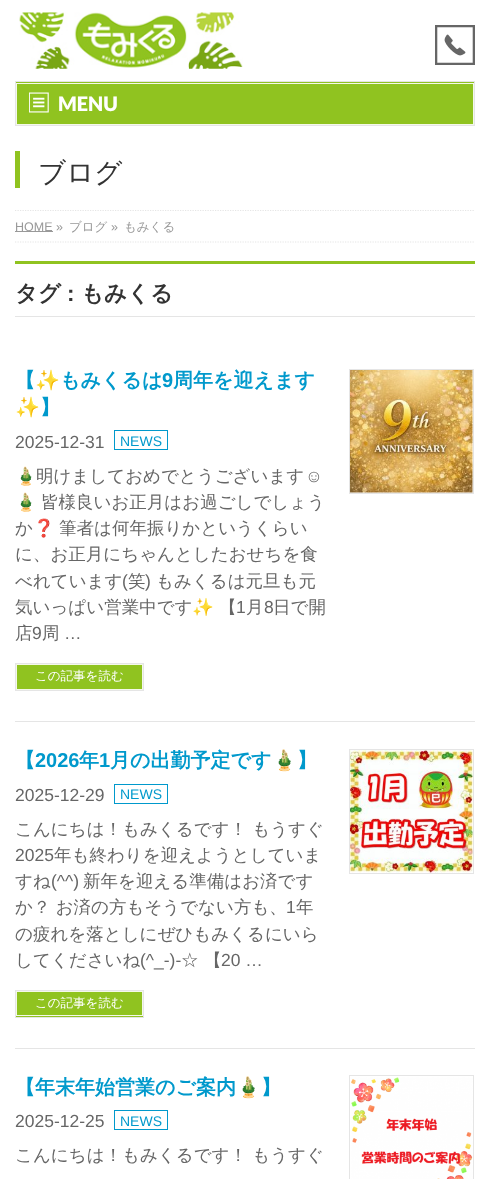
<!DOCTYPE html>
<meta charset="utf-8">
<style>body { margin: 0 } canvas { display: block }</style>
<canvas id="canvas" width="489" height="1179"></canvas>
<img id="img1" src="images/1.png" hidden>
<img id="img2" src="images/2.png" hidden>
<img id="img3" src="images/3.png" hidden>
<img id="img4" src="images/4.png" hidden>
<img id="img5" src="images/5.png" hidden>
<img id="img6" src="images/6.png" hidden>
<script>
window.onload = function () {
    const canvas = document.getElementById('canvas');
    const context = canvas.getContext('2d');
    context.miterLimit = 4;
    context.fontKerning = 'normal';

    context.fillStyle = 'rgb(255, 255, 255)';
    context.fillRect(0, 0, 489, 1179);
    context.drawImage(document.getElementById('img1'), 19, 12, 224, 57);
    context.drawImage(document.getElementById('img2'), 435, 25, 40, 40);
    context.fillStyle = 'rgb(144, 195, 32)';
    context.fillRect(16, 82, 458, 42);
    context.strokeStyle = 'rgb(244, 249, 233)';
    context.strokeRect(16.5, 83.5, 457, 41);
    context.strokeStyle = 'rgb(229, 229, 229)';
    context.strokeRect(15.5, 81.5, 459, 44);
    context.drawImage(document.getElementById('img3'), 29, 92, 20, 21);
    context.fillRect(15, 151, 5, 37);
    context.save();
    context.beginPath();
    context.rect(0, 210, 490, 33);
    context.clip();
    context.beginPath();
    context.moveTo(15, 210.5);
    context.lineTo(475, 210.5);
    context.lineWidth = 1.2;
    context.setLineDash([1.25, 1.25]);
    context.stroke();
    context.restore();
    context.beginPath();
    context.moveTo(15, 242);
    context.lineTo(475, 242);
    context.lineWidth = 1.2;
    context.setLineDash([1.25, 1.25]);
    context.stroke();
    context.fillStyle = 'rgb(153, 153, 153)';
    context.fillRect(15, 231, 38, 1);
    context.fillStyle = 'rgb(144, 195, 32)';
    context.fillRect(15, 261, 460, 3);
    context.fillStyle = 'rgb(229, 229, 229)';
    context.fillRect(15, 316, 460, 1);
    context.fillRect(15, 721, 460, 1);
    context.strokeStyle = 'rgb(0, 153, 204)';
    context.lineWidth = 1;
    context.setLineDash([]);
    context.strokeRect(114.5, 430.5, 53, 19);
    context.fillStyle = 'rgb(144, 195, 32)';
    context.beginPath();
    context.rect(16.5, 664.5, 126, 25);
    context.fill();
    context.strokeStyle = 'rgb(244, 249, 233)';
    context.stroke();
    context.strokeStyle = 'rgb(229, 229, 229)';
    context.strokeRect(15.5, 663.5, 128, 27);
    context.strokeRect(349.5, 369.5, 124, 124);
    context.drawImage(document.getElementById('img4'), 350, 370, 123, 123);
    context.fillStyle = 'rgb(229, 229, 229)';
    context.fillRect(15, 1048, 460, 1);
    context.strokeStyle = 'rgb(0, 153, 204)';
    context.strokeRect(114.5, 784.5, 53, 19);
    context.fillStyle = 'rgb(144, 195, 32)';
    context.fillRect(16, 992, 127, 25);
    context.strokeStyle = 'rgb(244, 249, 233)';
    context.strokeRect(16.5, 991.5, 126, 24);
    context.strokeStyle = 'rgb(229, 229, 229)';
    context.strokeRect(15.5, 990.5, 128, 27);
    context.strokeRect(349.5, 749.5, 124, 124);
    context.drawImage(document.getElementById('img5'), 350, 750, 123, 123);
    context.strokeStyle = 'rgb(0, 153, 204)';
    context.strokeRect(114.5, 1110.5, 53, 19);
    context.strokeStyle = 'rgb(229, 229, 229)';
    context.strokeRect(349.5, 1075.5, 124, 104);
    context.drawImage(document.getElementById('img6'), 351, 1077, 122, 102);
    context.font = '900 20px Lato';
    context.fillStyle = 'rgb(255, 255, 255)';
    context.fillText('MENU', 58, 111);
    context.font = '500 27.5px WenQuanYi Zen Hei';
    context.fillStyle = 'rgb(51, 51, 51)';
    context.fillText('ブログ', 38, 182);
    context.font = '12.5px Liberation Sans';
    context.fillStyle = 'rgb(153, 153, 153)';
    context.fillText('HOME »', 15, 231);
    context.font = '500 12.5px WenQuanYi Zen Hei';
    context.fillText('ブログ', 69, 231);
    context.font = '12.5px Liberation Sans';
    context.fillText('»', 111, 231);
    context.font = '500 12.5px WenQuanYi Zen Hei';
    context.fillText('もみくる', 124, 231);
    context.font = 'bold 22.5px WenQuanYi Zen Hei';
    context.fillStyle = 'rgb(51, 51, 51)';
    context.fillText('タグ', 15, 301);
    context.font = 'bold 22.5px Liberation Sans';
    context.fillText(':', 67, 301);
    context.font = 'bold 22.5px WenQuanYi Zen Hei';
    context.fillText('もみくる', 81, 301);
    context.font = 'bold 20px WenQuanYi Zen Hei';
    context.fillStyle = 'rgb(0, 153, 204)';
    context.fillText('【', 15, 387);
    context.font = 'bold 20px Noto Color Emoji';
    context.fillText('✨', 35, 387);
    context.font = 'bold 20px WenQuanYi Zen Hei';
    context.fillText('もみくるは', 60, 387);
    context.font = 'bold 20px Liberation Sans';
    context.fillText('9', 162, 387);
    context.font = 'bold 20px WenQuanYi Zen Hei';
    context.fillText('周年を迎えます', 173, 387);
    context.save();
    context.beginPath();
    context.rect(15, 368, 314, 328);
    context.clip();
    context.font = 'bold 20px Noto Color Emoji';
    context.fillText('✨', 15, 414);
    context.restore();
    context.fillText('】', 40, 414);
    context.font = '17.5px Liberation Sans';
    context.fillStyle = 'rgb(102, 102, 102)';
    context.fillText('2025-12-31', 15, 448);
    context.font = '14px Liberation Sans';
    context.fillStyle = 'rgb(0, 153, 204)';
    context.fillText('NEWS', 120, 446);
    context.save();
    context.beginPath();
    context.rect(15, 368, 314, 328);
    context.clip();
    context.font = '17.5px Noto Color Emoji';
    context.fillStyle = 'rgb(102, 102, 102)';
    context.fillText('🎍', 15, 482);
    context.restore();
    context.font = '500 17.5px WenQuanYi Zen Hei';
    context.fillStyle = 'rgb(102, 102, 102)';
    context.fillText('明けましておめでとうございます', 36, 482);
    context.font = '17.5px Liberation Sans';
    context.fillText('☺', 305, 482);
    context.save();
    context.beginPath();
    context.rect(15, 368, 314, 328);
    context.clip();
    context.font = '17.5px Noto Color Emoji';
    context.fillText('🎍', 15, 508);
    context.restore();
    context.font = '500 17.5px WenQuanYi Zen Hei';
    context.fillText('皆様良いお正月はお過ごしでしょう', 41, 508);
    context.fillText('か', 15, 534);
    context.font = '17.5px Noto Color Emoji';
    context.fillText('❓', 33, 534);
    context.font = '500 17.5px WenQuanYi Zen Hei';
    context.fillText('筆者は何年振りかというくらい', 59, 534);
    context.fillText('に、お正月にちゃんとしたおせちを食', 15, 560);
    context.fillText('べれています', 15, 587);
    context.font = '17.5px Liberation Sans';
    context.fillText('(', 122, 587);
    context.font = '500 17.5px WenQuanYi Zen Hei';
    context.fillText('笑', 128, 587);
    context.font = '17.5px Liberation Sans';
    context.fillText(')', 145, 587);
    context.font = '500 17.5px WenQuanYi Zen Hei';
    context.fillText('もみくるは元旦も元', 156, 587);
    context.fillText('気いっぱい営業中です', 15, 613);
    context.font = '17.5px Noto Color Emoji';
    context.fillText('✨', 192, 613);
    context.font = '500 17.5px WenQuanYi Zen Hei';
    context.fillText('【', 219, 613);
    context.font = '17.5px Liberation Sans';
    context.fillText('1', 236, 613);
    context.font = '500 17.5px WenQuanYi Zen Hei';
    context.fillText('月', 246, 613);
    context.font = '17.5px Liberation Sans';
    context.fillText('8', 264, 613);
    context.font = '500 17.5px WenQuanYi Zen Hei';
    context.fillText('日で開', 273, 613);
    context.fillText('店', 15, 639);
    context.font = '17.5px Liberation Sans';
    context.fillText('9', 32, 639);
    context.font = '500 17.5px WenQuanYi Zen Hei';
    context.fillText('周', 42, 639);
    context.font = '17.5px Liberation Sans';
    context.fillText('…', 64, 639);
    context.font = '500 12.5px WenQuanYi Zen Hei';
    context.fillStyle = 'rgb(255, 255, 255)';
    context.fillText('この記事を読む', 35, 680);
    context.font = 'bold 20px WenQuanYi Zen Hei';
    context.fillStyle = 'rgb(0, 153, 204)';
    context.fillText('【', 15, 767);
    context.font = 'bold 20px Liberation Sans';
    context.fillText('2026', 35, 767);
    context.font = 'bold 20px WenQuanYi Zen Hei';
    context.fillText('年', 79, 767);
    context.font = 'bold 20px Liberation Sans';
    context.fillText('1', 99, 767);
    context.font = 'bold 20px WenQuanYi Zen Hei';
    context.fillText('月の出勤予定です', 110, 767);
    context.font = 'bold 20px Noto Color Emoji';
    context.fillText('🎍', 272, 767);
    context.font = 'bold 20px WenQuanYi Zen Hei';
    context.fillText('】', 297, 767);
    context.font = '17.5px Liberation Sans';
    context.fillStyle = 'rgb(102, 102, 102)';
    context.fillText('2025-12-29', 15, 801);
    context.font = '14px Liberation Sans';
    context.fillStyle = 'rgb(0, 153, 204)';
    context.fillText('NEWS', 120, 799);
    context.font = '500 17.5px WenQuanYi Zen Hei';
    context.fillStyle = 'rgb(102, 102, 102)';
    context.fillText('こんにちは！もみくるです！ もうすぐ', 15, 835);
    context.font = '17.5px Liberation Sans';
    context.fillText('2025', 15, 861);
    context.font = '500 17.5px WenQuanYi Zen Hei';
    context.fillText('年も終わりを迎えようとしていま', 54, 861);
    context.fillText('すね', 15, 887);
    context.font = '17.5px Liberation Sans';
    context.fillText('(^^)', 51, 887);
    context.font = '500 17.5px WenQuanYi Zen Hei';
    context.fillText('新年を迎える準備はお済です', 83, 887);
    context.fillText('か？ お済の方もそうでない方も、', 15, 913);
    context.font = '17.5px Liberation Sans';
    context.fillText('1', 286, 913);
    context.font = '500 17.5px WenQuanYi Zen Hei';
    context.fillText('年', 296, 913);
    context.fillText('の疲れを落としにぜひもみくるにいら', 15, 940);
    context.fillText('してくださいね', 15, 966);
    context.font = '17.5px Liberation Sans';
    context.fillText('(^_-)-', 140, 966);
    context.font = '500 17.5px WenQuanYi Zen Hei';
    context.fillText('☆', 181, 966);
    context.fillText('【', 204, 966);
    context.font = '17.5px Liberation Sans';
    context.fillText('20 …', 221, 966);
    context.font = '500 12.5px WenQuanYi Zen Hei';
    context.fillStyle = 'rgb(255, 255, 255)';
    context.fillText('この記事を読む', 35, 1007);
    context.font = 'bold 20px WenQuanYi Zen Hei';
    context.fillStyle = 'rgb(0, 153, 204)';
    context.fillText('【年末年始営業のご案内', 15, 1094);
    context.font = 'bold 20px Noto Color Emoji';
    context.fillText('🎍', 236, 1094);
    context.font = 'bold 20px WenQuanYi Zen Hei';
    context.fillText('】', 261, 1094);
    context.font = '17.5px Liberation Sans';
    context.fillStyle = 'rgb(102, 102, 102)';
    context.fillText('2025-12-25', 15, 1127);
    context.font = '14px Liberation Sans';
    context.fillStyle = 'rgb(0, 153, 204)';
    context.fillText('NEWS', 120, 1126);
    context.font = '500 17.5px WenQuanYi Zen Hei';
    context.fillStyle = 'rgb(102, 102, 102)';
    context.fillText('こんにちは！もみくるです！ もうすぐ', 15, 1161);
};
</script>
